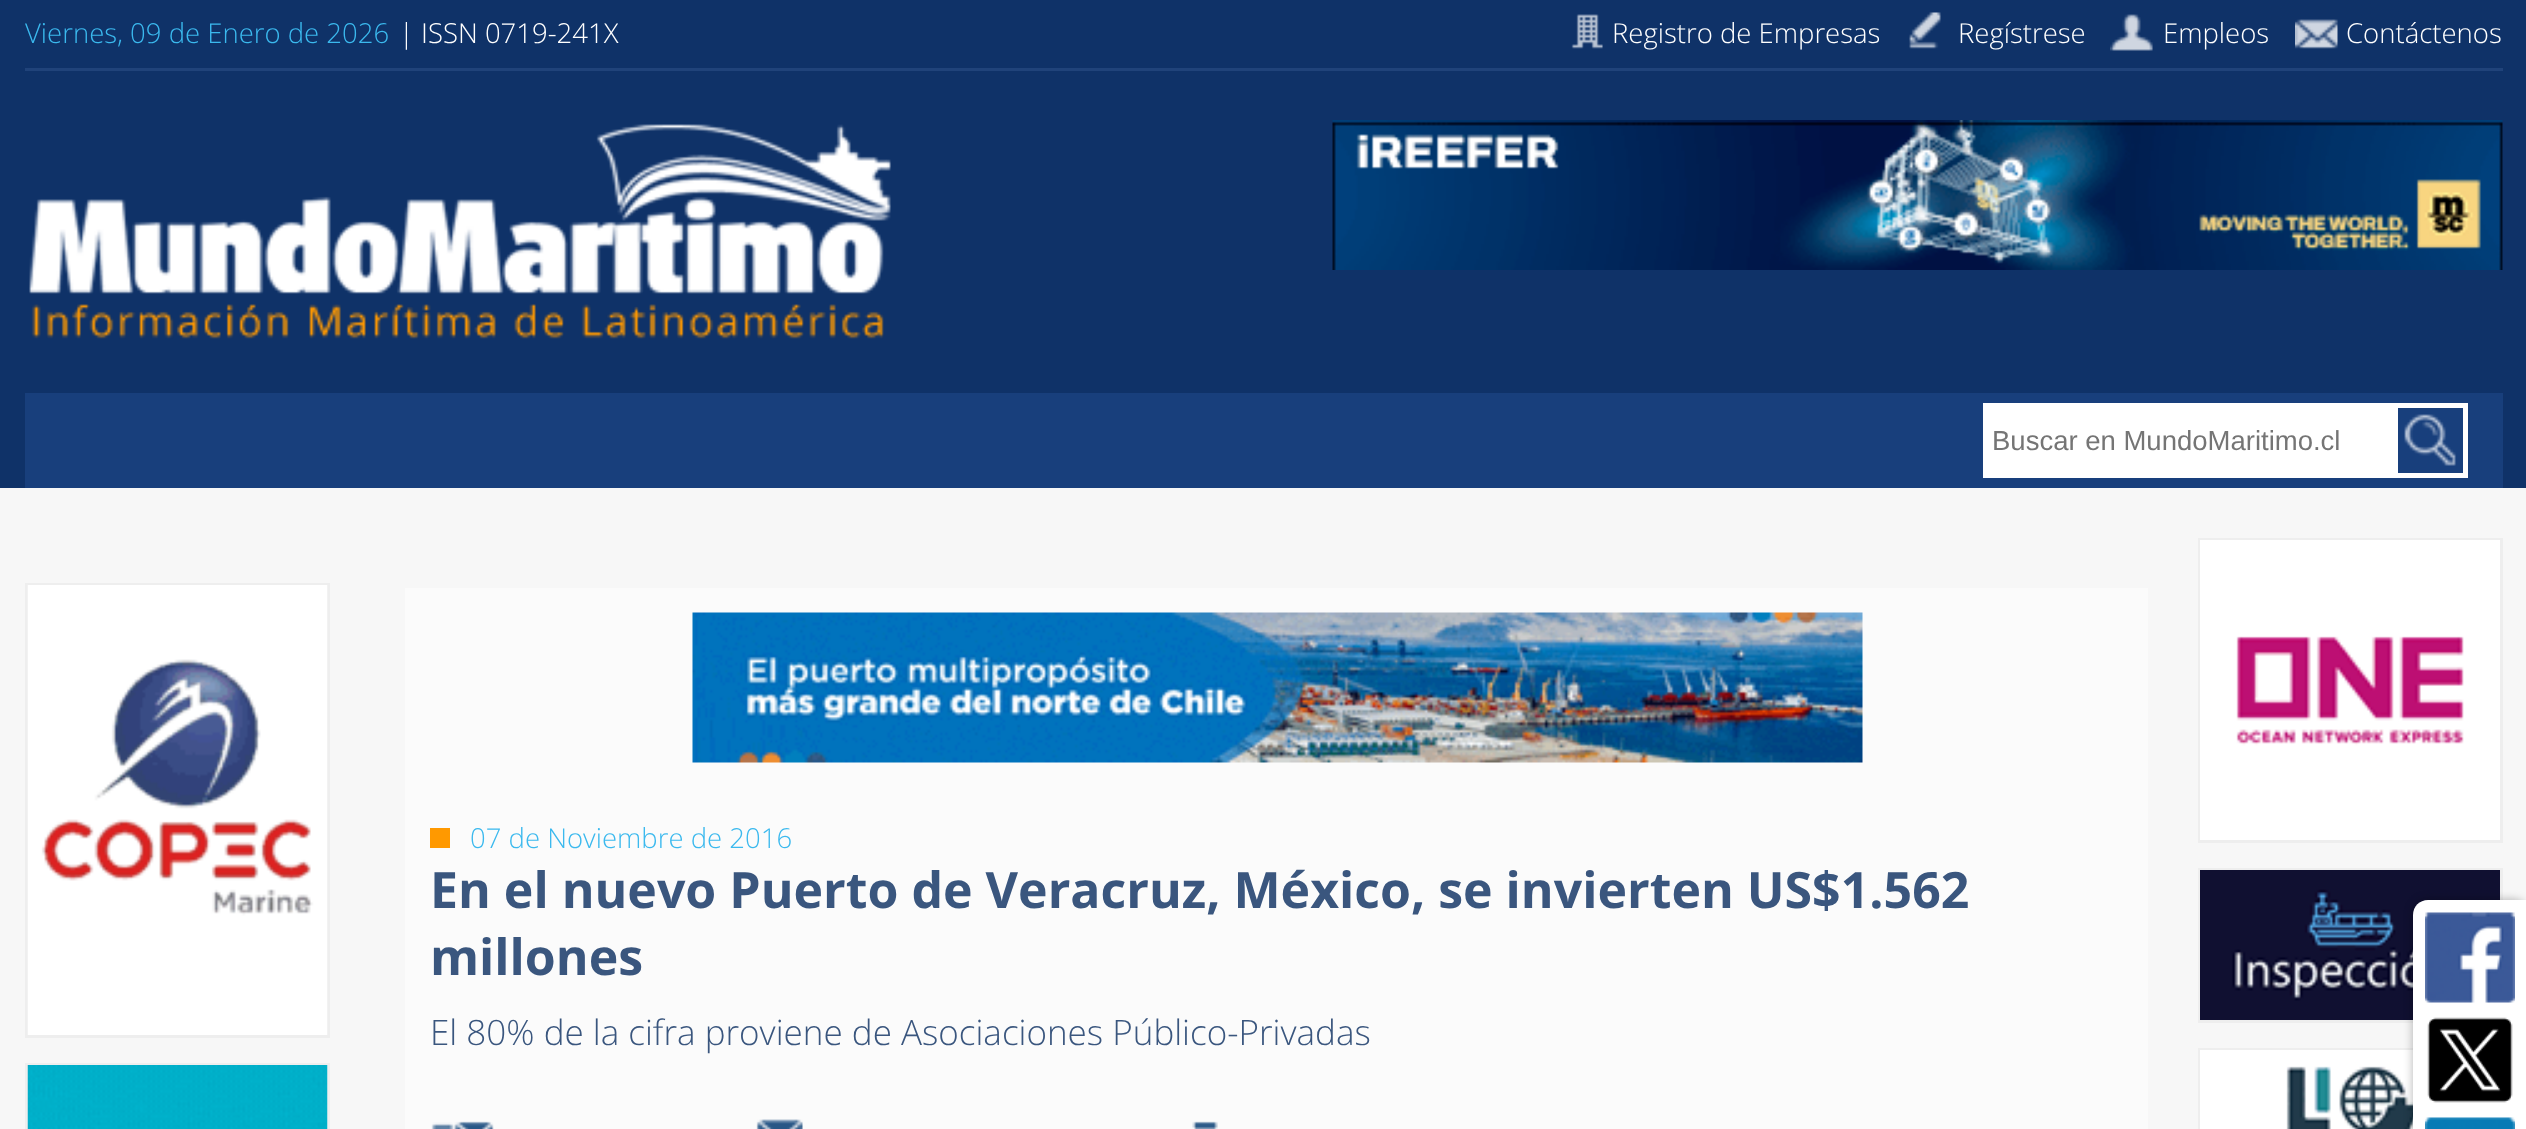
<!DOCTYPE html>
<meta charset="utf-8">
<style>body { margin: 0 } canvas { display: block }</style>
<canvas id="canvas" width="2526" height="1129"></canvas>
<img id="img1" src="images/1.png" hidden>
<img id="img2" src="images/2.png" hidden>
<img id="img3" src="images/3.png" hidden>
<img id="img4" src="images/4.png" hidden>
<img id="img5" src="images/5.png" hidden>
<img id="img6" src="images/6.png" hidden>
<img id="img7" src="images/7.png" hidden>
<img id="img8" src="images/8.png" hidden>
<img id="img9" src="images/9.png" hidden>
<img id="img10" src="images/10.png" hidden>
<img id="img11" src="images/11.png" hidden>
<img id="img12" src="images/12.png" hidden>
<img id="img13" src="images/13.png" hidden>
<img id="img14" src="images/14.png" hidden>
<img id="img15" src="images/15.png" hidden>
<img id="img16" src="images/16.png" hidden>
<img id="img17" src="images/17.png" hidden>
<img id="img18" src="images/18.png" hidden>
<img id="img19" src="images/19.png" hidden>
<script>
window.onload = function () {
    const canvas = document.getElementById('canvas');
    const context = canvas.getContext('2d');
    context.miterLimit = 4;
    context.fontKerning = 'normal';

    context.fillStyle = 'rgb(247, 247, 247)';
    context.fillRect(0, 0, 2526, 1129);
    context.fillStyle = 'rgb(15, 50, 104)';
    context.fillRect(0, 0, 2526, 488);
    context.fillStyle = 'rgb(32, 67, 122)';
    context.fillRect(25, 68, 2478, 3);
    context.drawImage(document.getElementById('img1'), 1571, 14, 32, 35);
    context.drawImage(document.getElementById('img2'), 1909, 12, 32, 37);
    context.drawImage(document.getElementById('img3'), 2110, 14, 43, 37);
    context.drawImage(document.getElementById('img4'), 2295, 19, 43, 30);
    context.drawImage(document.getElementById('img5'), 29, 124, 862, 215);
    context.drawImage(document.getElementById('img6'), 1332, 120, 1171, 150);
    context.fillStyle = 'rgb(24, 63, 124)';
    context.fillRect(25, 393, 2478, 95);
    context.fillStyle = 'rgb(255, 255, 255)';
    context.fillRect(1983, 403, 485, 75);
    context.fillStyle = 'rgb(24, 63, 124)';
    context.fillRect(2398, 408, 65, 65);
    context.drawImage(document.getElementById('img7'), 2404, 414, 52, 52);
    context.strokeStyle = 'rgb(238, 238, 238)';
    context.lineWidth = 3;
    context.strokeRect(26.5, 584.5, 302, 452);
    context.drawImage(document.getElementById('img8'), 27, 585, 301, 450);
    context.strokeRect(26.5, 1064.5, 302, 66);
    context.drawImage(document.getElementById('img9'), 27, 1065, 301, 64);
    context.fillStyle = 'rgb(251, 251, 251)';
    context.fillRect(405, 588, 1743, 541);
    context.drawImage(document.getElementById('img10'), 692, 612, 1171, 151);
    context.fillStyle = 'rgb(255, 153, 0)';
    context.fillRect(430, 828, 20, 20);
    context.drawImage(document.getElementById('img11'), 431, 1121, 63, 8);
    context.drawImage(document.getElementById('img12'), 756, 1119, 47, 10);
    context.drawImage(document.getElementById('img13'), 1192, 1121, 26, 8);
    context.strokeRect(2199.5, 539.5, 302, 302);
    context.drawImage(document.getElementById('img14'), 2200, 540, 300, 300);
    context.strokeRect(2199.5, 869.5, 302, 152);
    context.drawImage(document.getElementById('img15'), 2200, 870, 300, 150);
    context.strokeRect(2199.5, 1049.5, 302, 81);
    context.drawImage(document.getElementById('img16'), 2200, 1050, 213, 79);
    context.fillStyle = 'rgba(0, 0, 0, 0.3)';
    context.filter = 'blur(5px)';
    context.beginPath();
    context.roundRect(2413, 900, 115, 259, 15);
    context.fill();
    context.filter = 'none';
    context.fillStyle = 'rgb(255, 255, 255)';
    context.beginPath();
    context.moveTo(2428, 900);
    context.lineTo(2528, 900);
    context.lineTo(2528, 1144);
    context.lineTo(2428, 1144);
    context.bezierCurveTo(2419.5, 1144, 2413, 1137.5, 2413, 1129);
    context.lineTo(2413, 915);
    context.bezierCurveTo(2413, 906.5, 2419.5, 900, 2428, 900);
    context.closePath();
    context.fill();
    context.drawImage(document.getElementById('img17'), 2425, 912, 90, 91);
    context.drawImage(document.getElementById('img18'), 2427, 1017, 86, 86);
    context.drawImage(document.getElementById('img19'), 2425, 1117, 90, 12);
    context.font = '300 27.5px Open Sans';
    context.fillStyle = 'rgb(59, 185, 238)';
    context.fillText('Viernes, 09 de Enero de 2026', 25, 43);
    context.fillStyle = 'rgb(255, 255, 255)';
    context.fillText('| ISSN 0719-241X', 399, 43);
    context.fillText('Registro de Empresas', 1612, 43);
    context.fillText('Regístrese', 1958, 43);
    context.fillText('Empleos', 2163, 43);
    context.fillText('Contáctenos', 2346, 43);
    context.font = '27.5px Liberation Sans';
    context.fillStyle = 'rgb(117, 117, 117)';
    context.fillText('Buscar en MundoMaritimo.cl', 1992, 450);
    context.font = '300 27.5px Open Sans';
    context.fillStyle = 'rgb(59, 185, 238)';
    context.fillText('07 de Noviembre de 2016', 470, 848);
    context.font = 'bold 50px Open Sans';
    context.fillStyle = 'rgb(58, 86, 126)';
    context.fillText('En el nuevo Puerto de Veracruz, México, se invierten US$1.562', 430, 908);
    context.fillText('millones', 430, 975);
    context.font = '300 35px Open Sans';
    context.fillText('El 80% de la cifra proviene de Asociaciones Público-Privadas', 430, 1045);
};
</script>
